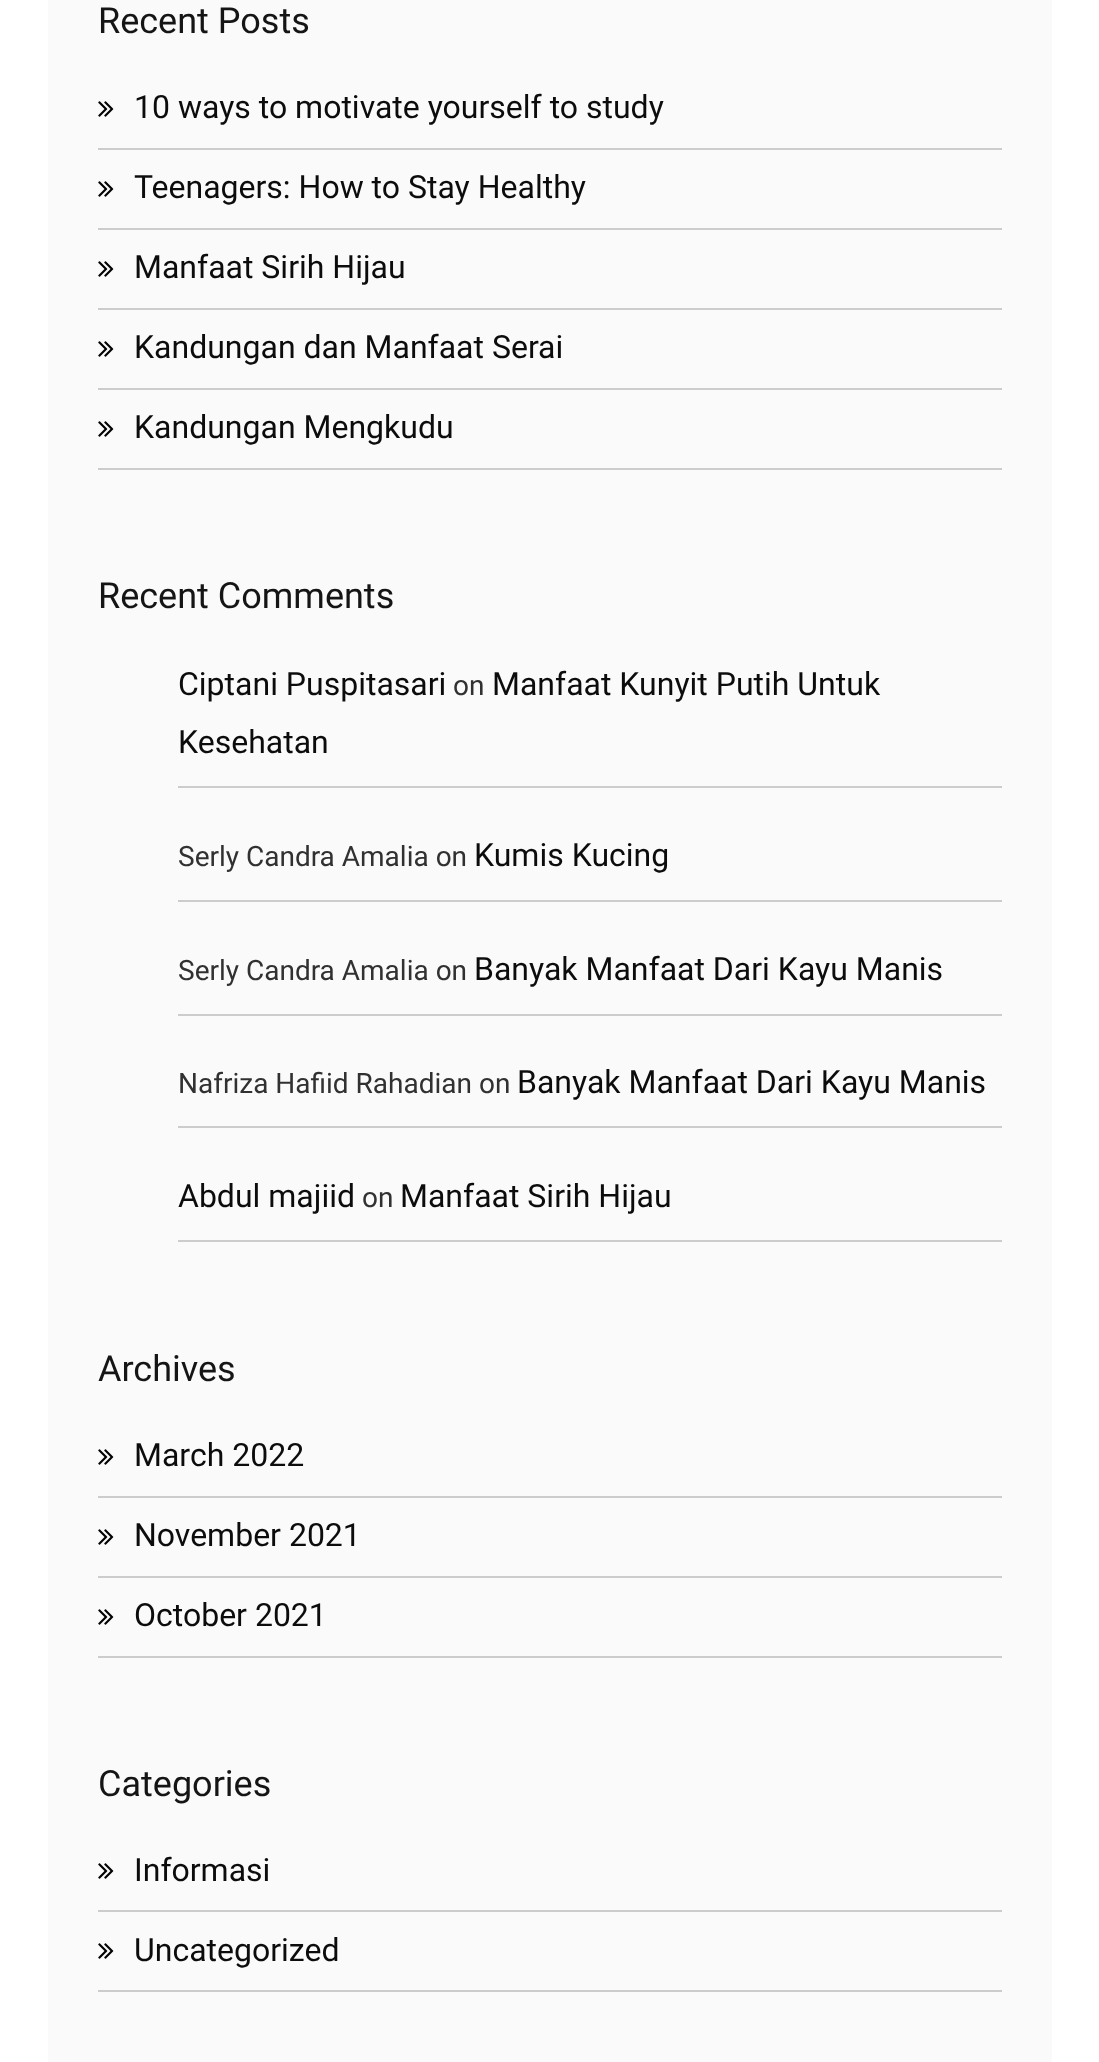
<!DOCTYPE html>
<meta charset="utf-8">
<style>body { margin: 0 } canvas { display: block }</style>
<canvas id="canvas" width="1099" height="2062"></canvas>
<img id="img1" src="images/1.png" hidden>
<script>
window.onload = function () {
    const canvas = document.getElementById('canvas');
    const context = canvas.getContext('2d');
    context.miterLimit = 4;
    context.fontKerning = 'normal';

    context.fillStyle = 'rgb(255, 255, 255)';
    context.fillRect(0, 0, 1099, 2062);
    context.fillStyle = 'rgb(251, 250, 250)';
    context.fillRect(48, 0, 1004, 2062);
    context.fillStyle = 'rgb(204, 204, 204)';
    context.fillRect(98, 148, 904, 2);
    context.drawImage(document.getElementById('img1'), 98, 101, 16, 16);
    context.fillRect(98, 228, 904, 2);
    context.drawImage(document.getElementById('img1'), 98, 181, 16, 16);
    context.fillRect(98, 308, 904, 2);
    context.drawImage(document.getElementById('img1'), 98, 261, 16, 16);
    context.fillRect(98, 388, 904, 2);
    context.drawImage(document.getElementById('img1'), 98, 341, 16, 16);
    context.fillRect(98, 468, 904, 2);
    context.drawImage(document.getElementById('img1'), 98, 421, 16, 16);
    context.fillRect(178, 786, 824, 2);
    context.fillRect(178, 900, 824, 2);
    context.fillRect(178, 1014, 824, 2);
    context.fillRect(178, 1126, 824, 2);
    context.fillRect(178, 1240, 824, 2);
    context.fillRect(98, 1496, 904, 2);
    context.drawImage(document.getElementById('img1'), 98, 1449, 16, 16);
    context.fillRect(98, 1576, 904, 2);
    context.drawImage(document.getElementById('img1'), 98, 1529, 16, 16);
    context.fillRect(98, 1656, 904, 2);
    context.drawImage(document.getElementById('img1'), 98, 1609, 16, 16);
    context.fillRect(98, 1910, 904, 2);
    context.drawImage(document.getElementById('img1'), 98, 1863, 16, 16);
    context.fillRect(98, 1990, 904, 2);
    context.drawImage(document.getElementById('img1'), 98, 1943, 16, 16);
    context.font = '36px Roboto';
    context.fillStyle = 'rgb(21, 21, 21)';
    context.fillText('Recent Posts', 98, 33);
    context.font = '32px Roboto';
    context.fillStyle = 'rgb(12, 12, 12)';
    context.fillText('10 ways to motivate yourself to study', 134, 118);
    context.fillText('Teenagers: How to Stay Healthy', 134, 198);
    context.fillText('Manfaat Sirih Hijau', 134, 278);
    context.fillText('Kandungan dan Manfaat Serai', 134, 358);
    context.fillText('Kandungan Mengkudu', 134, 438);
    context.font = '36px Roboto';
    context.fillStyle = 'rgb(21, 21, 21)';
    context.fillText('Recent Comments', 98, 608);
    context.font = '32px Roboto';
    context.fillStyle = 'rgb(12, 12, 12)';
    context.fillText('Ciptani Puspitasari', 178, 695);
    context.font = '28px Roboto';
    context.fillStyle = 'rgb(49, 49, 49)';
    context.fillText('on', 453, 695);
    context.font = '32px Roboto';
    context.fillStyle = 'rgb(12, 12, 12)';
    context.fillText('Manfaat Kunyit Putih Untuk', 492, 695);
    context.fillText('Kesehatan', 178, 753);
    context.font = '28px Roboto';
    context.fillStyle = 'rgb(49, 49, 49)';
    context.fillText('Serly Candra Amalia on', 178, 866);
    context.font = '32px Roboto';
    context.fillStyle = 'rgb(12, 12, 12)';
    context.fillText('Kumis Kucing', 474, 866);
    context.font = '28px Roboto';
    context.fillStyle = 'rgb(49, 49, 49)';
    context.fillText('Serly Candra Amalia on', 178, 980);
    context.font = '32px Roboto';
    context.fillStyle = 'rgb(12, 12, 12)';
    context.fillText('Banyak Manfaat Dari Kayu Manis', 474, 980);
    context.font = '28px Roboto';
    context.fillStyle = 'rgb(49, 49, 49)';
    context.fillText('Nafriza Hafiid Rahadian on', 178, 1093);
    context.font = '32px Roboto';
    context.fillStyle = 'rgb(12, 12, 12)';
    context.fillText('Banyak Manfaat Dari Kayu Manis', 517, 1093);
    context.fillText('Abdul majiid', 178, 1207);
    context.font = '28px Roboto';
    context.fillStyle = 'rgb(49, 49, 49)';
    context.fillText('on', 362, 1207);
    context.font = '32px Roboto';
    context.fillStyle = 'rgb(12, 12, 12)';
    context.fillText('Manfaat Sirih Hijau', 400, 1207);
    context.font = '36px Roboto';
    context.fillStyle = 'rgb(21, 21, 21)';
    context.fillText('Archives', 98, 1381);
    context.font = '32px Roboto';
    context.fillStyle = 'rgb(12, 12, 12)';
    context.fillText('March 2022', 134, 1466);
    context.fillText('November 2021', 134, 1546);
    context.fillText('October 2021', 134, 1626);
    context.font = '36px Roboto';
    context.fillStyle = 'rgb(21, 21, 21)';
    context.fillText('Categories', 98, 1796);
    context.font = '32px Roboto';
    context.fillStyle = 'rgb(12, 12, 12)';
    context.fillText('Informasi', 134, 1881);
    context.fillText('Uncategorized', 134, 1961);
};
</script>
